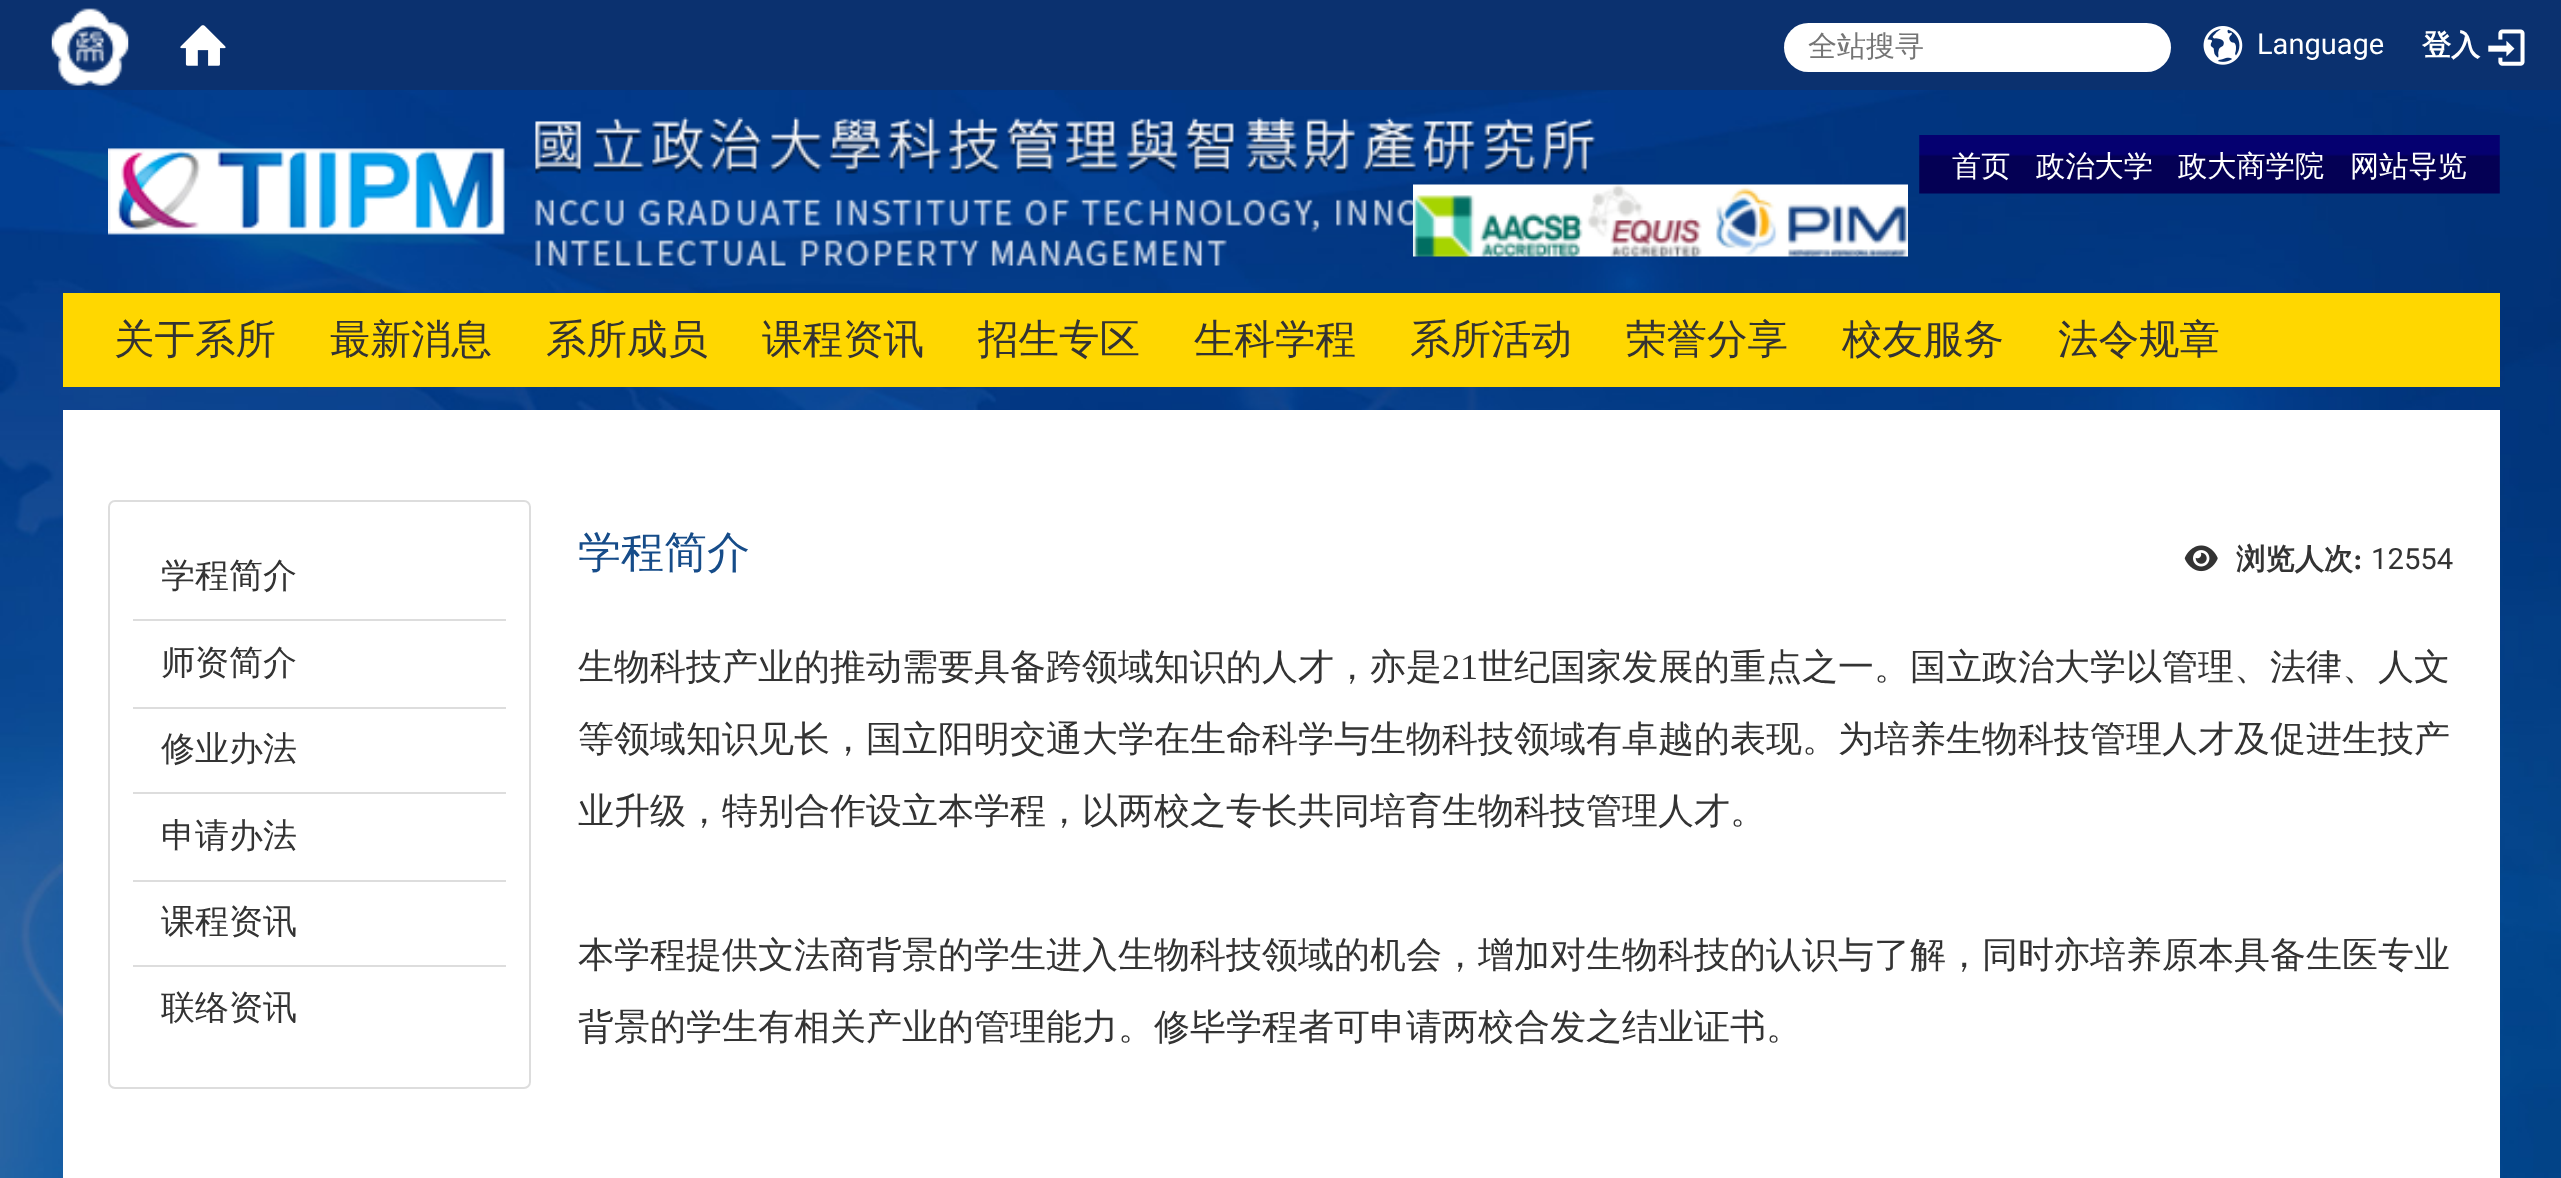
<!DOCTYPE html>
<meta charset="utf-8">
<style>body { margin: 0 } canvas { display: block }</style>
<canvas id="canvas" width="2561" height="1178"></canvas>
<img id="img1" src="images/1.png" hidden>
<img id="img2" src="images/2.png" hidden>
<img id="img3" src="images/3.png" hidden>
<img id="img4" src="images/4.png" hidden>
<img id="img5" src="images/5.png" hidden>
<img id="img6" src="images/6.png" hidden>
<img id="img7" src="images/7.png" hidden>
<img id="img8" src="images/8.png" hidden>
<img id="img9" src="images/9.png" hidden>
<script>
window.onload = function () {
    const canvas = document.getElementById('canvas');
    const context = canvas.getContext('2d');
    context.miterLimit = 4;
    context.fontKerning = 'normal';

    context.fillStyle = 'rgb(255, 255, 255)';
    context.fillRect(0, 0, 2561, 1178);
    context.drawImage(document.getElementById('img1'), 0, 90, 2561, 1088);
    context.fillStyle = 'rgb(11, 49, 111)';
    context.fillRect(0, 0, 2561, 90);
    context.drawImage(document.getElementById('img2'), 51, 8, 78, 78);
    context.drawImage(document.getElementById('img3'), 180, 25, 46, 41);
    context.fillStyle = 'rgb(255, 255, 255)';
    context.beginPath();
    context.roundRect(1784, 23, 387, 49, 24.5);
    context.fill();
    context.drawImage(document.getElementById('img4'), 2203, 26, 40, 39);
    context.drawImage(document.getElementById('img5'), 2488, 29, 37, 37);
    context.drawImage(document.getElementById('img6'), 108, 117, 1488, 149);
    context.drawImage(document.getElementById('img7'), 1919, 135, 581, 59);
    context.drawImage(document.getElementById('img8'), 1413, 184, 495, 73);
    context.fillStyle = 'rgb(255, 215, 0)';
    context.fillRect(63, 293, 2437, 94);
    context.fillStyle = 'rgb(255, 255, 255)';
    context.fillRect(63, 410, 2437, 768);
    context.beginPath();
    context.roundRect(109, 501, 421, 587, 6);
    context.strokeStyle = 'rgb(221, 221, 221)';
    context.lineWidth = 2;
    context.stroke();
    context.fillStyle = 'rgb(221, 221, 221)';
    context.fillRect(133, 619, 373, 2);
    context.fillRect(133, 707, 373, 2);
    context.fillRect(133, 792, 373, 2);
    context.fillRect(133, 880, 373, 2);
    context.fillRect(133, 965, 373, 2);
    context.drawImage(document.getElementById('img9'), 2184, 545, 34, 27);
    context.font = '500 29px WenQuanYi Zen Hei';
    context.fillStyle = 'rgb(117, 117, 117)';
    context.fillText('全站搜寻', 1808, 56);
    context.font = '29px Roboto';
    context.fillStyle = 'rgb(255, 255, 255)';
    context.fillText('Language', 2257, 54);
    context.font = 'bold 29px WenQuanYi Zen Hei';
    context.fillText('登入', 2422, 55);
    context.font = '500 29.25px WenQuanYi Zen Hei';
    context.fillText('首页', 1952, 176);
    context.fillText('政治大学', 2036, 176);
    context.fillText('政大商学院', 2178, 176);
    context.fillText('网站导览', 2350, 176);
    context.font = '500 40.5px WenQuanYi Zen Hei';
    context.fillStyle = 'rgb(51, 51, 51)';
    context.fillText('关于系所', 114, 353);
    context.fillText('最新消息', 330, 353);
    context.fillText('系所成员', 546, 353);
    context.fillText('课程资讯', 762, 353);
    context.fillText('招生专区', 978, 353);
    context.fillText('生科学程', 1194, 353);
    context.fillText('系所活动', 1410, 353);
    context.fillText('荣誉分享', 1626, 353);
    context.fillText('校友服务', 1842, 353);
    context.fillText('法令规章', 2058, 353);
    context.font = '500 34px WenQuanYi Zen Hei';
    context.fillText('学程简介', 161, 587);
    context.fillText('师资简介', 161, 674);
    context.fillText('修业办法', 161, 760);
    context.fillText('申请办法', 161, 847);
    context.fillText('课程资讯', 161, 933);
    context.fillText('联络资讯', 161, 1019);
    context.font = '500 43px WenQuanYi Zen Hei';
    context.fillStyle = 'rgb(22, 76, 137)';
    context.fillText('学程简介', 578, 567);
    context.font = 'bold 29.25px WenQuanYi Zen Hei';
    context.fillStyle = 'rgb(51, 51, 51)';
    context.fillText('浏览人次', 2236, 569);
    context.font = 'bold 29.25px Liberation Serif';
    context.fillText(':', 2353, 569);
    context.font = '29.25px Roboto';
    context.fillText('12554', 2371, 569);
    context.font = '500 36px WenQuanYi Zen Hei';
    context.fillText('生物科技产业的推动需要具备跨领域知识的人才，亦是', 578, 679);
    context.font = '36px Liberation Serif';
    context.fillText('21', 1442, 679);
    context.font = '500 36px WenQuanYi Zen Hei';
    context.fillText('世纪国家发展的重点之一。国立政治大学以管理、法律、人文', 1478, 679);
    context.fillText('等领域知识见长，国立阳明交通大学在生命科学与生物科技领域有卓越的表现。为培养生物科技管理人才及促进生技产', 578, 751);
    context.fillText('业升级，特别合作设立本学程，以两校之专长共同培育生物科技管理人才。', 578, 823);
    context.fillText('本学程提供文法商背景的学生进入生物科技领域的机会，增加对生物科技的认识与了解，同时亦培养原本具备生医专业', 578, 967);
    context.fillText('背景的学生有相关产业的管理能力。修毕学程者可申请两校合发之结业证书。', 578, 1039);
};
</script>
